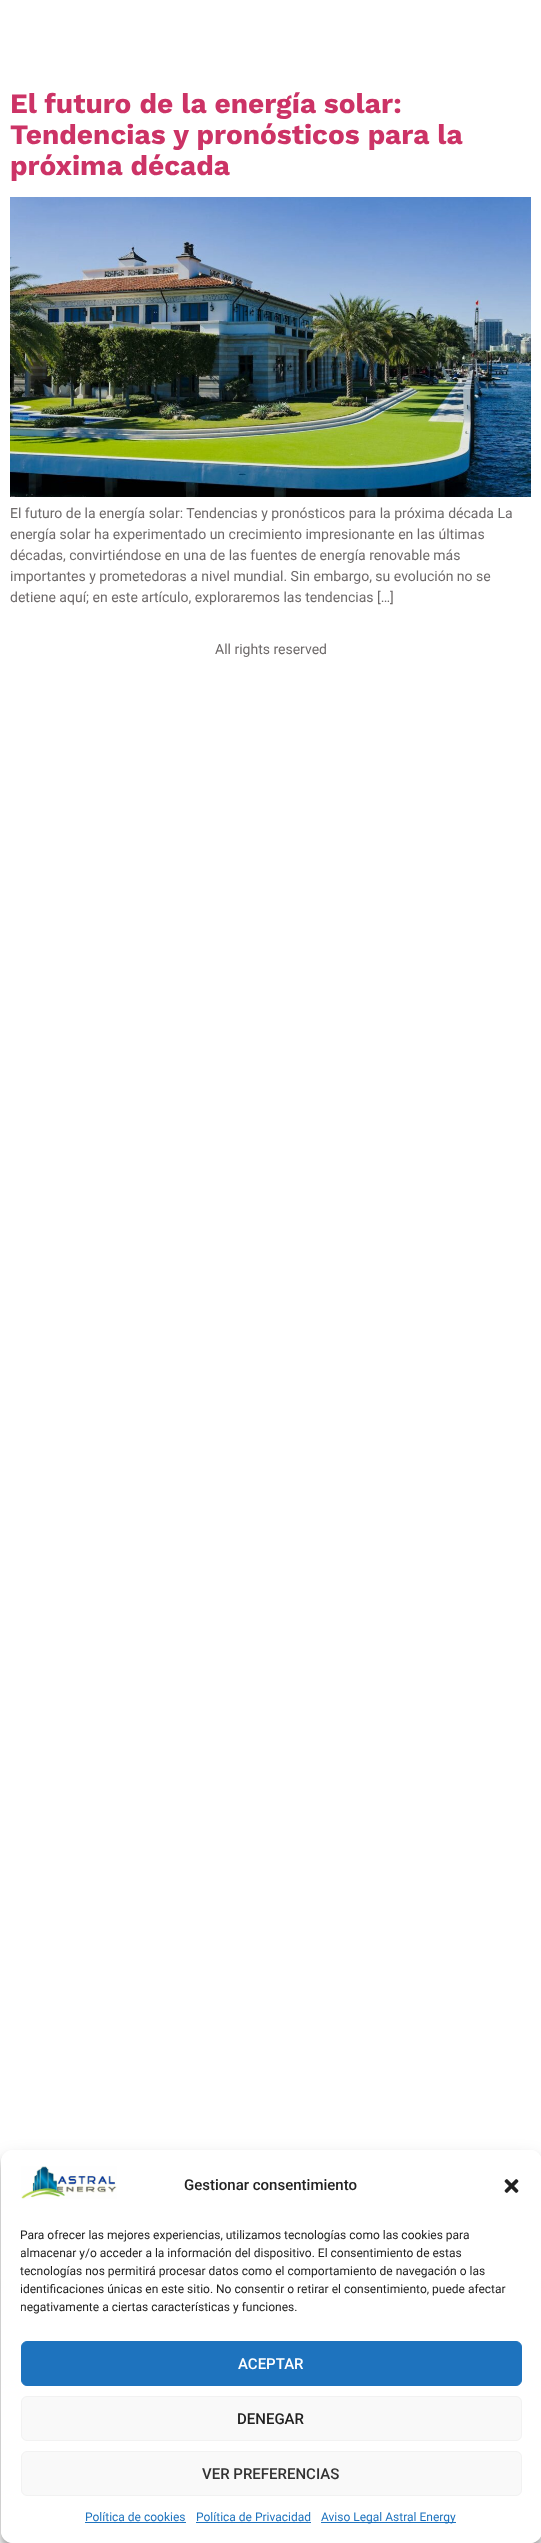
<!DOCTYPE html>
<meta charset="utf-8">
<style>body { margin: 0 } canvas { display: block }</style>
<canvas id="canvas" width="541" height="2543"></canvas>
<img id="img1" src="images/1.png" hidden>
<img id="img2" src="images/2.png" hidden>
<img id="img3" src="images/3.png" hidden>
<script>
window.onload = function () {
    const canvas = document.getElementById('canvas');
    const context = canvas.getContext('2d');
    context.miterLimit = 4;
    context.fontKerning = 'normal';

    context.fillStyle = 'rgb(255, 255, 255)';
    context.fillRect(0, 0, 541, 2543);
    context.drawImage(document.getElementById('img1'), 10, 197, 521, 300);
    context.save();
    context.beginPath();
    context.moveTo(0, 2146);
    context.lineTo(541, 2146);
    context.lineTo(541, 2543);
    context.lineTo(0, 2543);
    context.closePath();
    context.moveTo(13, 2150);
    context.lineTo(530, 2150);
    context.bezierCurveTo(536.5, 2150, 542, 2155.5, 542, 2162);
    context.lineTo(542, 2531);
    context.bezierCurveTo(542, 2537.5, 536.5, 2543, 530, 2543);
    context.lineTo(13, 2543);
    context.bezierCurveTo(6.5, 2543, 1, 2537.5, 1, 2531);
    context.lineTo(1, 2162);
    context.bezierCurveTo(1, 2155.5, 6.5, 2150, 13, 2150);
    context.closePath();
    context.clip('evenodd');
    context.fillStyle = 'rgba(0, 0, 0, 0.23)';
    context.filter = 'blur(3px)';
    context.beginPath();
    context.roundRect(1, 2156, 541, 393, 12);
    context.fill();
    context.filter = 'none';
    context.restore();
    context.save();
    context.beginPath();
    context.moveTo(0, 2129);
    context.lineTo(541, 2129);
    context.lineTo(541, 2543);
    context.lineTo(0, 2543);
    context.closePath();
    context.moveTo(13, 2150);
    context.lineTo(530, 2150);
    context.bezierCurveTo(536.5, 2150, 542, 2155.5, 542, 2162);
    context.lineTo(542, 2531);
    context.bezierCurveTo(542, 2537.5, 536.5, 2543, 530, 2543);
    context.lineTo(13, 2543);
    context.bezierCurveTo(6.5, 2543, 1, 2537.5, 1, 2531);
    context.lineTo(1, 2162);
    context.bezierCurveTo(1, 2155.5, 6.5, 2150, 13, 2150);
    context.closePath();
    context.clip('evenodd');
    context.fillStyle = 'rgba(0, 0, 0, 0.19)';
    context.filter = 'blur(10px)';
    context.beginPath();
    context.roundRect(1, 2160, 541, 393, 12);
    context.fill();
    context.filter = 'none';
    context.restore();
    context.beginPath();
    context.roundRect(1, 2150, 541, 393, 12);
    context.fill();
    context.drawImage(document.getElementById('img2'), 21, 2166, 96, 33);
    context.drawImage(document.getElementById('img3'), 504, 2179, 15, 14);
    context.fillStyle = 'rgb(30, 115, 190)';
    context.beginPath();
    context.roundRect(21.5, 2341.5, 500, 44, 5.5);
    context.fill();
    context.strokeStyle = 'rgb(30, 115, 190)';
    context.stroke();
    context.fillStyle = 'rgb(249, 249, 249)';
    context.beginPath();
    context.roundRect(21.5, 2396.5, 500, 44, 5.5);
    context.fill();
    context.strokeStyle = 'rgb(242, 242, 242)';
    context.stroke();
    context.beginPath();
    context.roundRect(21.5, 2451.5, 500, 44, 5.5);
    context.fill();
    context.stroke();
    context.fillStyle = 'rgb(30, 115, 190)';
    context.fillRect(85, 2522, 101, 1);
    context.fillRect(196, 2522, 115, 1);
    context.fillRect(321, 2522, 135, 1);
    context.font = 'bold 28px Work Sans';
    context.fillStyle = 'rgb(204, 51, 102)';
    context.fillText('El futuro de la energía solar:', 10, 113);
    context.fillText('Tendencias y pronósticos para la', 10, 144);
    context.fillText('próxima década', 10, 175);
    context.font = '14px Roboto';
    context.fillStyle = 'rgb(110, 106, 106)';
    context.fillText('El futuro de la energía solar: Tendencias y pronósticos para la próxima década La', 10, 518);
    context.fillText('energía solar ha experimentado un crecimiento impresionante en las últimas', 10, 539);
    context.fillText('décadas, convirtiéndose en una de las fuentes de energía renovable más', 10, 560);
    context.fillText('importantes y prometedoras a nivel mundial. Sin embargo, su evolución no se', 10, 581);
    context.fillText('detiene aquí; en este artículo, exploraremos las tendencias […]', 10, 602);
    context.fillText('All rights reserved', 215, 654);
    context.font = '500 15px Roboto';
    context.fillStyle = 'rgb(34, 34, 34)';
    context.fillText('Gestionar consentimiento', 184, 2190);
    context.font = '12px Roboto';
    context.fillText('Para ofrecer las mejores experiencias, utilizamos tecnologías como las cookies para', 20, 2239);
    context.save();
    context.beginPath();
    context.rect(21, 2226, 501, 95);
    context.clip();
    context.fillText('almacenar y/o acceder a la información del dispositivo. El consentimiento de estas', 20, 2257);
    context.restore();
    context.fillText('tecnologías nos permitirá procesar datos como el comportamiento de navegación o las', 20, 2275);
    context.save();
    context.beginPath();
    context.rect(21, 2226, 501, 95);
    context.clip();
    context.fillText('identificaciones únicas en este sitio. No consentir o retirar el consentimiento, puede afectar', 20, 2293);
    context.fillText('negativamente a ciertas características y funciones.', 20, 2311);
    context.restore();
    context.font = '500 15px Roboto';
    context.fillStyle = 'rgb(255, 255, 255)';
    context.fillText('ACEPTAR', 238, 2369);
    context.fillStyle = 'rgb(34, 34, 34)';
    context.fillText('DENEGAR', 237, 2424);
    context.fillStyle = 'rgb(51, 51, 51)';
    context.fillText('VER PREFERENCIAS', 202, 2479);
    context.font = '12px Roboto';
    context.fillStyle = 'rgb(30, 115, 190)';
    context.fillText('Política de cookies', 85, 2521);
    context.fillText('Política de Privacidad', 196, 2521);
    context.fillText('Aviso Legal Astral Energy', 321, 2521);
};
</script>
